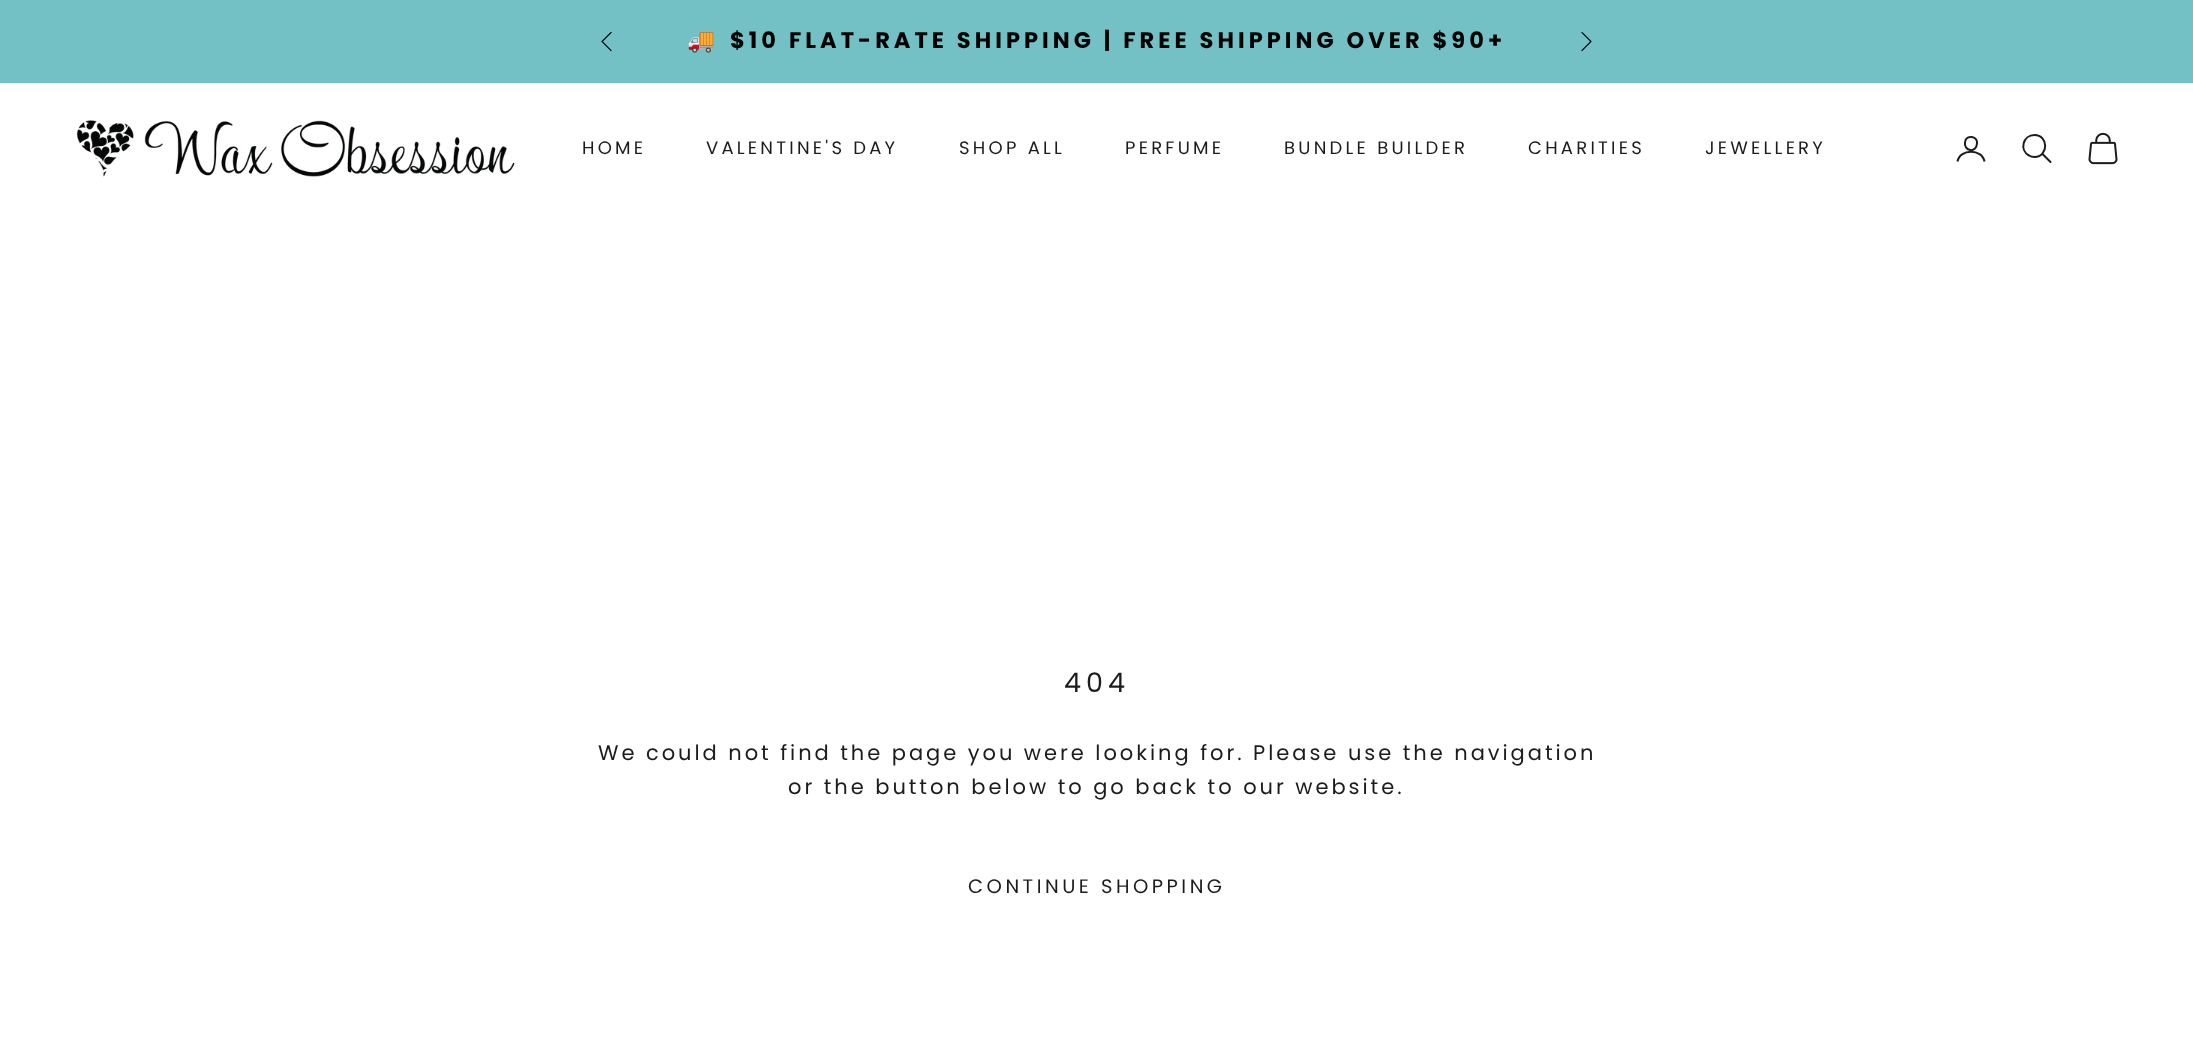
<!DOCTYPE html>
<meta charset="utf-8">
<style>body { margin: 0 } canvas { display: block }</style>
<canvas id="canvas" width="2193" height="1057"></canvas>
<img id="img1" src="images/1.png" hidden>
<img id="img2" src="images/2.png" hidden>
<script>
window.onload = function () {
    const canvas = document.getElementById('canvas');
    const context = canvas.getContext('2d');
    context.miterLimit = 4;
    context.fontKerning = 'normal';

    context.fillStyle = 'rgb(255, 255, 255)';
    context.fillRect(0, 0, 2193, 1057);
    context.fillStyle = 'rgb(115, 193, 197)';
    context.fillRect(0, 0, 2193, 83);
    context.beginPath();
    context.moveTo(611, 32.5);
    context.lineTo(602, 41.5);
    context.lineTo(611, 50.5);
    context.strokeStyle = 'rgb(0, 0, 0)';
    context.lineWidth = 1.1;
    context.lineCap = 'square';
    context.stroke();
    context.beginPath();
    context.moveTo(1582, 50.5);
    context.lineTo(1591, 41.5);
    context.lineTo(1582, 32.5);
    context.stroke();
    context.drawImage(document.getElementById('img1'), 76, 120, 439, 57);
    context.beginPath();
    context.moveTo(1977, 143.5);
    context.bezierCurveTo(1976.5, 153.5, 1963.5, 151.5, 1965, 142);
    context.bezierCurveTo(1966, 134.5, 1978, 135.5, 1977, 143.5);
    context.closePath();
    context.strokeStyle = 'rgb(28, 28, 28)';
    context.lineWidth = 2;
    context.lineCap = 'round';
    context.lineJoin = 'round';
    context.stroke();
    context.beginPath();
    context.moveTo(1957.5, 161.5);
    context.bezierCurveTo(1960, 148.5, 1982, 148.5, 1984.5, 161.5);
    context.lineCap = 'butt';
    context.lineJoin = 'miter';
    context.stroke();
    context.beginPath();
    context.moveTo(2034.5, 135);
    context.bezierCurveTo(2023, 135, 2019, 150, 2029, 155.5);
    context.bezierCurveTo(2030.5, 156.5, 2032.5, 157, 2034.5, 157);
    context.bezierCurveTo(2049, 156.5, 2048.5, 135, 2034.5, 135);
    context.closePath();
    context.stroke();
    context.beginPath();
    context.moveTo(2043, 154.5);
    context.lineTo(2050.5, 162);
    context.lineCap = 'round';
    context.stroke();
    context.drawImage(document.getElementById('img2'), 2088, 132, 30, 33);
    context.letterSpacing = '4.05px';
    context.font = '22.5px Noto Color Emoji';
    context.fillStyle = 'rgb(0, 0, 0)';
    context.fillText('🚚', 687, 48);
    context.font = 'bold 22.5px Poppins';
    context.fillText('$10 FLAT-RATE SHIPPING | FREE SHIPPING OVER $90+', 730, 48);
    context.letterSpacing = '3.25px';
    context.font = '18px Poppins';
    context.fillStyle = 'rgb(28, 28, 28)';
    context.fillText('HOME', 582, 154);
    context.fillText('VALENTINE\'S DAY', 706, 154);
    context.fillText('SHOP ALL', 959, 154);
    context.fillText('PERFUME', 1125, 154);
    context.fillText('BUNDLE BUILDER', 1284, 154);
    context.fillText('CHARITIES', 1528, 154);
    context.fillText('JEWELLERY', 1705, 154);
    context.letterSpacing = '5px';
    context.font = '27px Poppins';
    context.fillText('404', 1064, 692);
    context.letterSpacing = '2.95px';
    context.font = '21px Poppins';
    context.fillText('We could not find the page you were looking for. Please use the navigation', 598, 760);
    context.fillText('or the button below to go back to our website.', 788, 794);
    context.letterSpacing = '3.5px';
    context.font = '19.5px Poppins';
    context.fillText('CONTINUE SHOPPING', 968, 893);
};
</script>
